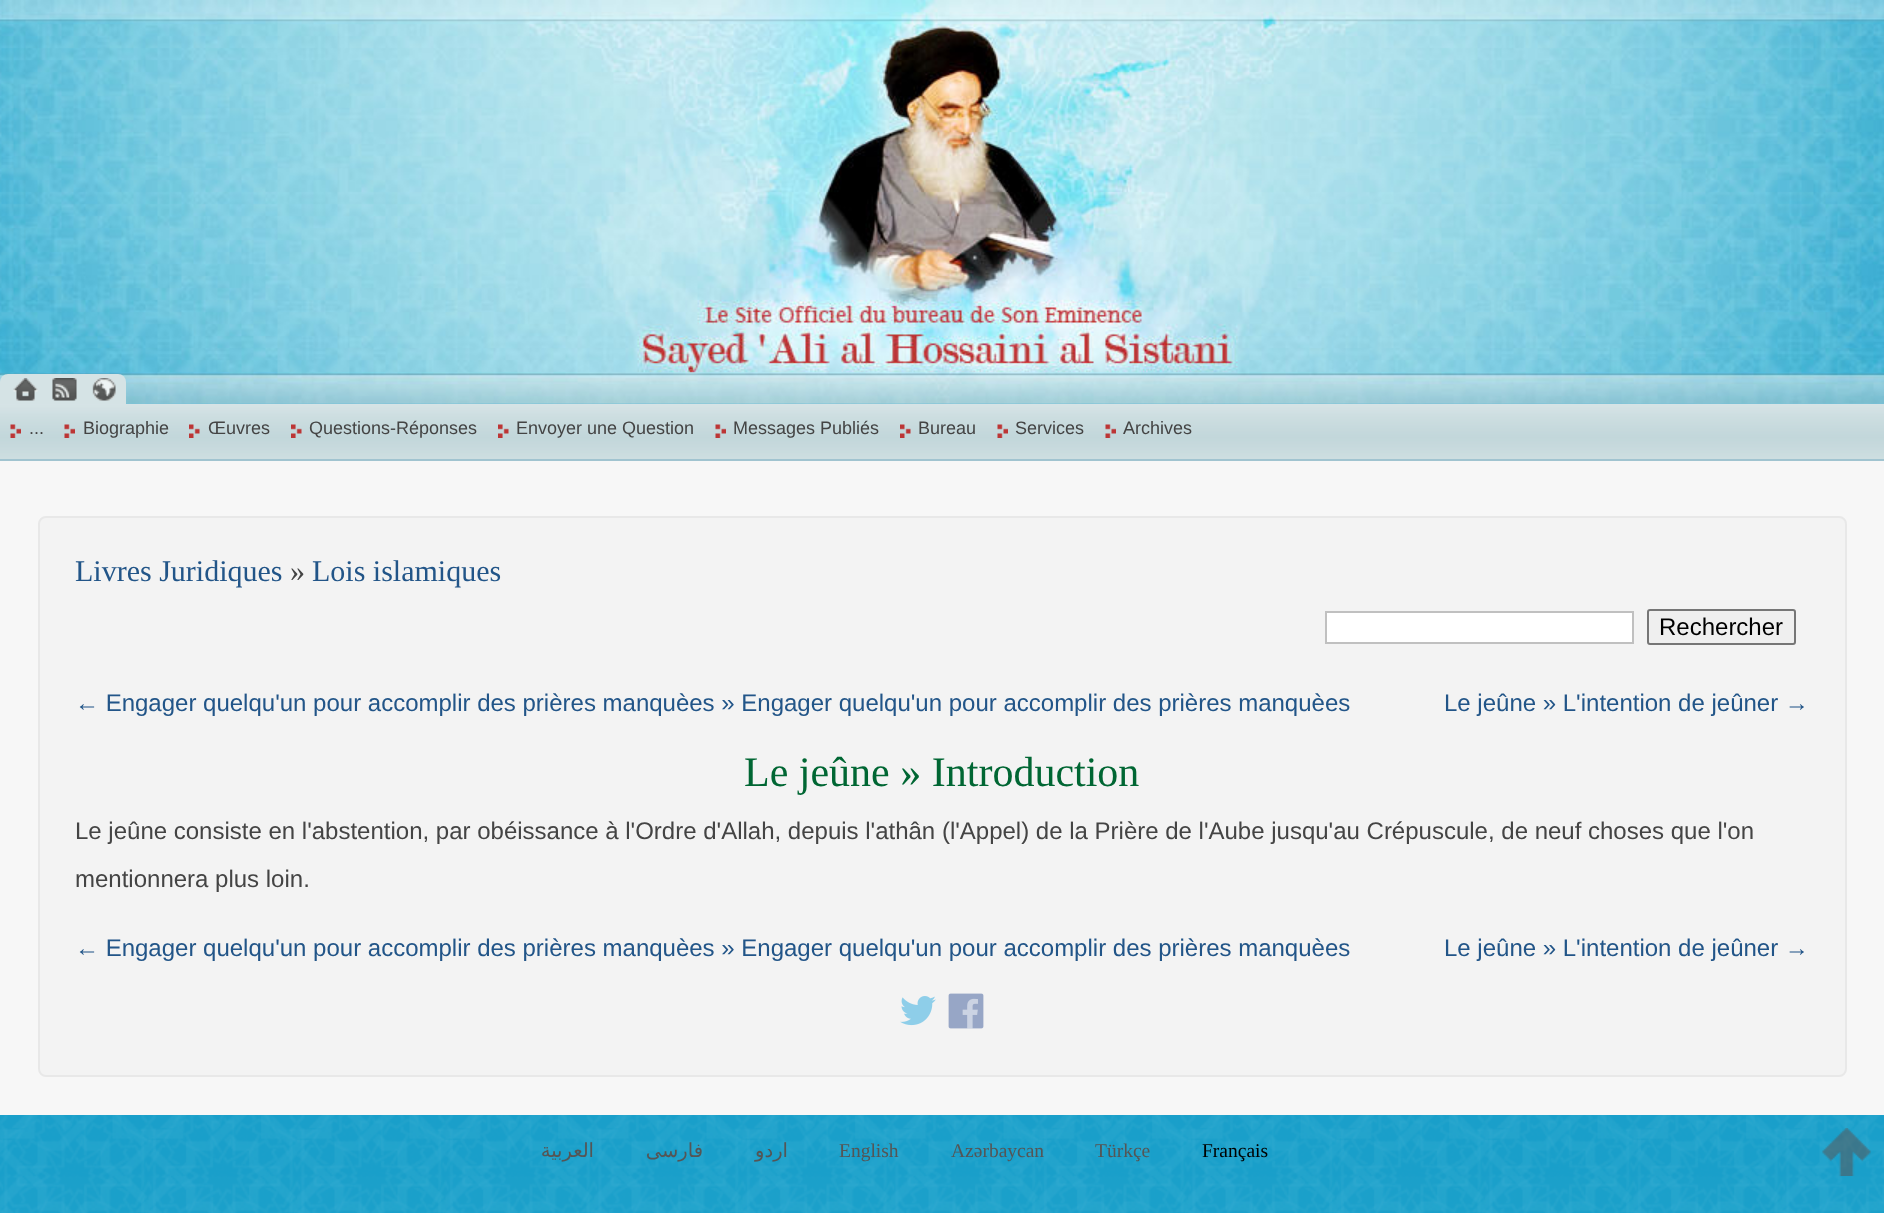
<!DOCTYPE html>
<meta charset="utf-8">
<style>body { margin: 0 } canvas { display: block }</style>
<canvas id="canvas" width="1884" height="1213"></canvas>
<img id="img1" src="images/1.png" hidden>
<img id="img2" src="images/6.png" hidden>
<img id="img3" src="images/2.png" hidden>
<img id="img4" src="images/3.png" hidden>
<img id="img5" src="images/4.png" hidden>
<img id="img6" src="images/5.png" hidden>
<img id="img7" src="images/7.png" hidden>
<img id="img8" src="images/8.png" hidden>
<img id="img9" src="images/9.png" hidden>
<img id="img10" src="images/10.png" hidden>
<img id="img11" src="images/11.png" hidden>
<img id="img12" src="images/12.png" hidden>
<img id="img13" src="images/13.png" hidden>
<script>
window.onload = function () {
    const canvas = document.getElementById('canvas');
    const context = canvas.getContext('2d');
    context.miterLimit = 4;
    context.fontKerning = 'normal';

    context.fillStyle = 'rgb(255, 255, 255)';
    context.fillRect(0, 0, 1884, 1213);
    context.drawImage(document.getElementById('img1'), 0, 403, 1884, 810);
    context.drawImage(document.getElementById('img2'), 0, 403, 1884, 56);
    context.drawImage(document.getElementById('img3'), 0, 0, 1884, 404);
    context.fillStyle = 'rgb(213, 227, 229)';
    context.beginPath();
    context.roundRect(0, 374, 126, 30, [8, 8, 0, 0]);
    context.fill();
    context.drawImage(document.getElementById('img4'), 13, 378, 25, 23);
    context.drawImage(document.getElementById('img5'), 52, 378, 25, 23);
    context.drawImage(document.getElementById('img6'), 92, 378, 24, 23);
    context.fillStyle = 'rgb(161, 196, 208)';
    context.fillRect(0, 459, 1884, 2);
    context.drawImage(document.getElementById('img7'), 10, 424, 11, 14);
    context.drawImage(document.getElementById('img7'), 64, 424, 11, 14);
    context.drawImage(document.getElementById('img8'), 189, 424, 11, 14);
    context.drawImage(document.getElementById('img9'), 291, 424, 11, 14);
    context.drawImage(document.getElementById('img9'), 498, 424, 11, 14);
    context.drawImage(document.getElementById('img10'), 715, 424, 11, 14);
    context.drawImage(document.getElementById('img8'), 900, 424, 11, 14);
    context.drawImage(document.getElementById('img7'), 997, 424, 11, 14);
    context.drawImage(document.getElementById('img7'), 1105, 424, 11, 14);
    context.fillStyle = 'rgb(247, 247, 247)';
    context.fillRect(0, 461, 1884, 654);
    context.fillStyle = 'rgb(243, 243, 243)';
    context.beginPath();
    context.roundRect(39, 517, 1807, 559, 7);
    context.fill();
    context.strokeStyle = 'rgb(232, 232, 232)';
    context.lineWidth = 2;
    context.stroke();
    context.fillStyle = 'rgb(255, 255, 255)';
    context.beginPath();
    context.rect(1326, 612, 307, 31);
    context.fill();
    context.strokeStyle = 'rgb(192, 192, 192)';
    context.stroke();
    context.fillStyle = 'rgb(239, 239, 239)';
    context.beginPath();
    context.roundRect(1648, 610, 147, 34, 2);
    context.fill();
    context.strokeStyle = 'rgb(118, 118, 118)';
    context.stroke();
    context.drawImage(document.getElementById('img11'), 900, 996, 36, 30);
    context.drawImage(document.getElementById('img12'), 948, 993, 36, 36);
    context.drawImage(document.getElementById('img13'), 1822, 1128, 49, 48);
    context.font = '18px Liberation Sans';
    context.fillStyle = 'rgb(68, 68, 68)';
    context.fillText('...', 29, 434);
    context.fillText('Biographie', 83, 434);
    context.fillText('Œuvres', 208, 434);
    context.fillText('Questions-Réponses', 309, 434);
    context.fillText('Envoyer une Question', 516, 434);
    context.fillText('Messages Publiés', 733, 434);
    context.fillText('Bureau', 918, 434);
    context.fillText('Services', 1015, 434);
    context.fillText('Archives', 1123, 434);
    context.font = '30px Liberation Serif';
    context.fillStyle = 'rgb(34, 85, 136)';
    context.fillText('Livres Juridiques', 75, 581);
    context.fillStyle = 'rgb(68, 68, 68)';
    context.fillText('»', 290, 581);
    context.fillStyle = 'rgb(34, 85, 136)';
    context.fillText('Lois islamiques', 312, 581);
    context.font = '24px Liberation Sans';
    context.fillStyle = 'rgb(0, 0, 0)';
    context.fillText('Rechercher', 1659, 635);
    context.fillStyle = 'rgb(34, 85, 136)';
    context.fillText('← Engager quelqu\'un pour accomplir des prières manquèes » Engager quelqu\'un pour accomplir des prières manquèes', 75, 711);
    context.fillText('Le jeûne » L\'intention de jeûner →', 1444, 711);
    context.font = '42px Liberation Serif';
    context.fillStyle = 'rgb(0, 102, 51)';
    context.fillText('Le jeûne » Introduction', 744, 786);
    context.font = '24px Liberation Sans';
    context.fillStyle = 'rgb(68, 68, 68)';
    context.fillText('Le jeûne consiste en l\'abstention, par obéissance à l\'Ordre d\'Allah, depuis l\'athân (l\'Appel) de la Prière de l\'Aube jusqu\'au Crépuscule, de neuf choses que l\'on', 75, 839);
    context.fillText('mentionnera plus loin.', 75, 887);
    context.fillStyle = 'rgb(34, 85, 136)';
    context.fillText('← Engager quelqu\'un pour accomplir des prières manquèes » Engager quelqu\'un pour accomplir des prières manquèes', 75, 956);
    context.fillText('Le jeûne » L\'intention de jeûner →', 1444, 956);
    context.direction = 'rtl';
    context.font = '19.5px DejaVu Sans';
    context.fillStyle = 'rgb(85, 85, 85)';
    context.fillText('العربية', 594, 1157);
    context.fillText('فارسی', 703, 1157);
    context.fillText('اردو', 788, 1157);
    context.direction = 'ltr';
    context.font = '19.5px Liberation Serif';
    context.fillText('English', 839, 1157);
    context.fillText('Azərbaycan', 951, 1157);
    context.fillText('Türkçe', 1095, 1157);
    context.fillStyle = 'rgb(0, 0, 0)';
    context.fillText('Français', 1202, 1157);
};
</script>
